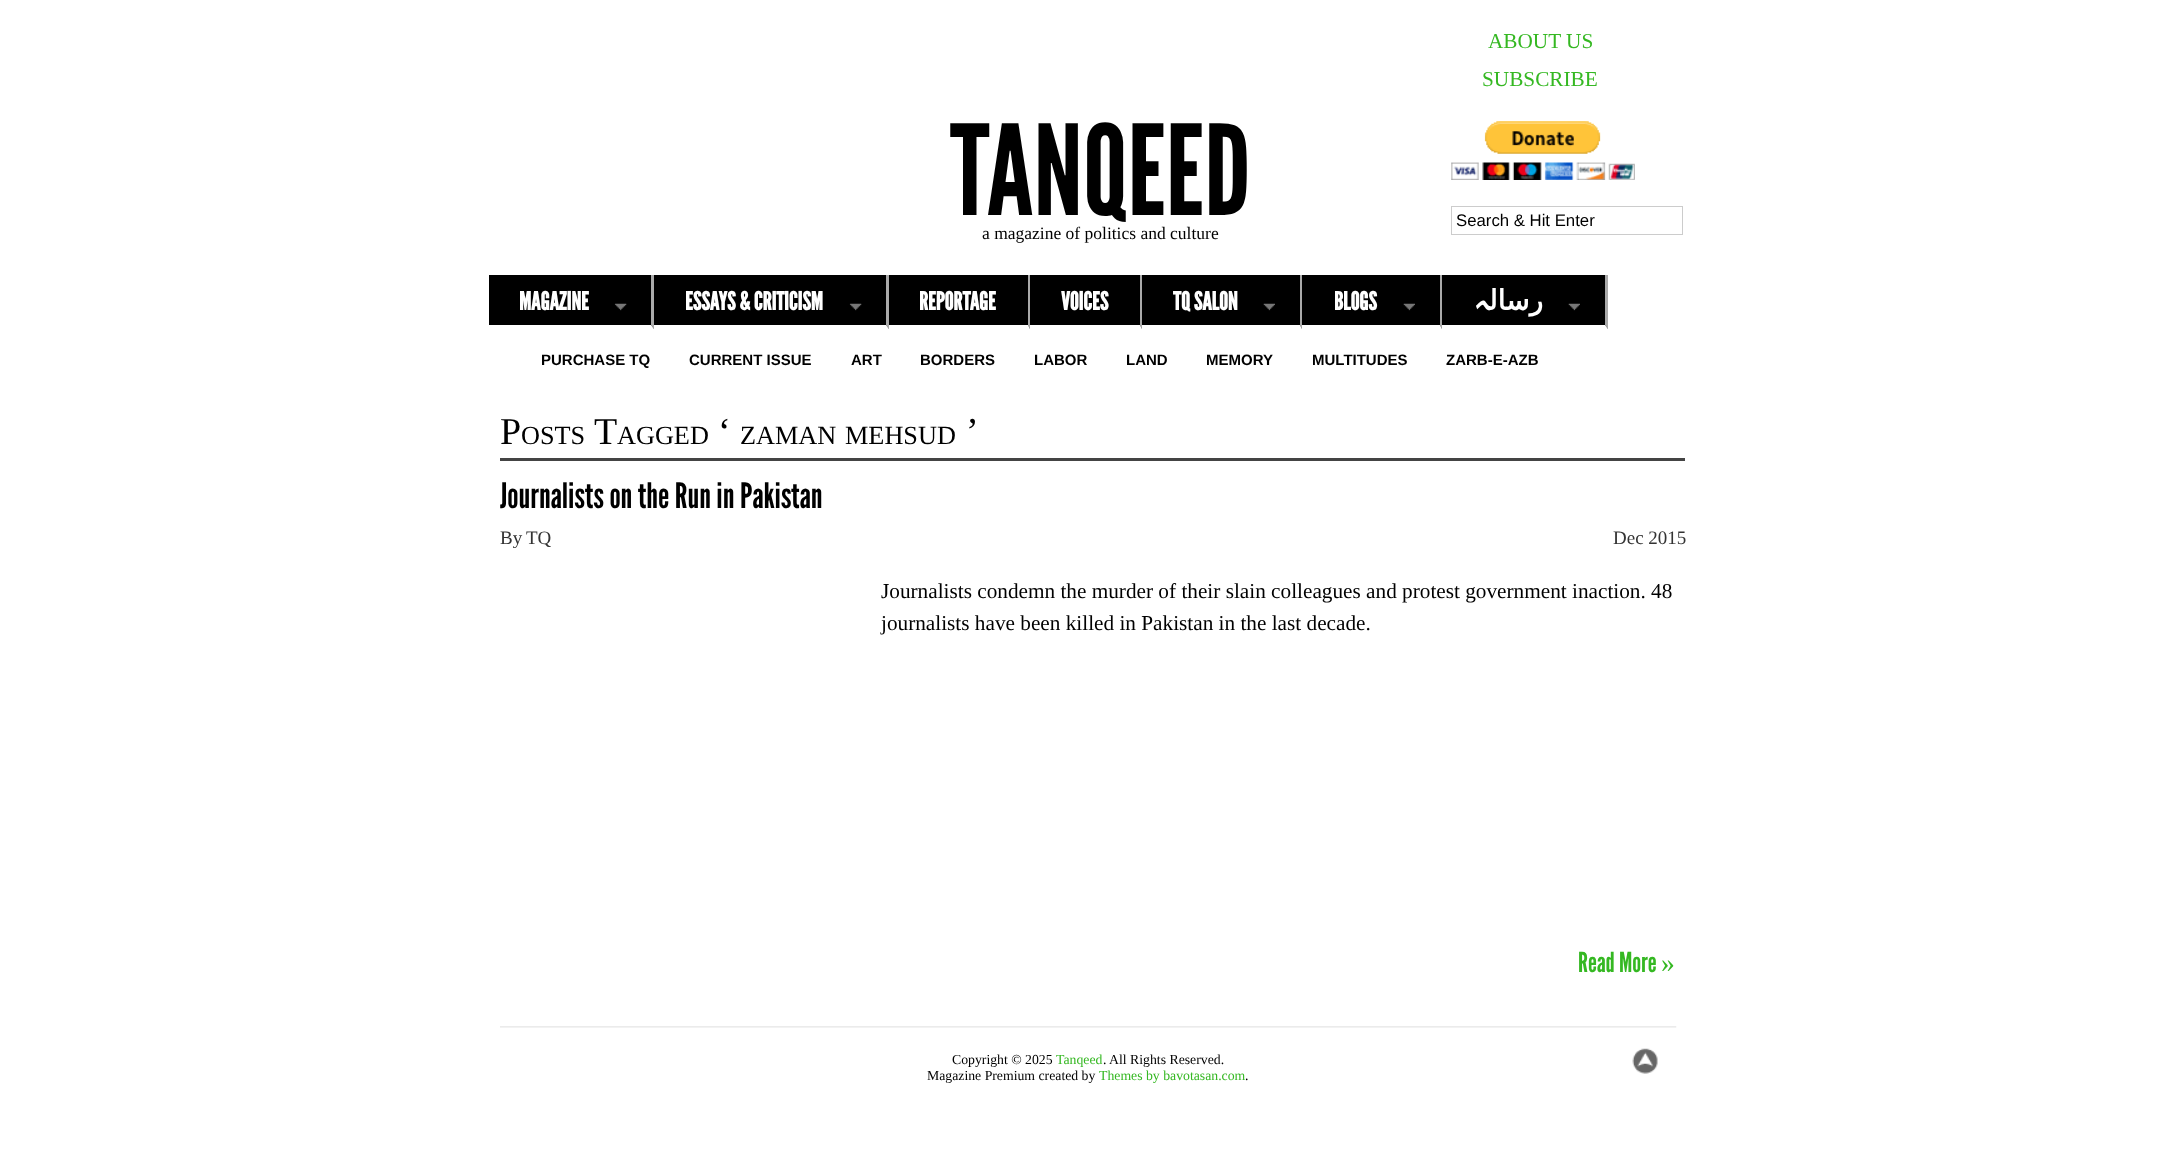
<!DOCTYPE html>
<meta charset="utf-8">
<style>body { margin: 0 } canvas { display: block }</style>
<canvas id="canvas" width="2176" height="1157"></canvas>
<img id="img1" src="images/1.png" hidden>
<img id="img2" src="images/2.png" hidden>
<img id="img3" src="images/3.png" hidden>
<img id="img4" src="images/4.png" hidden>
<img id="img5" src="images/5.png" hidden>
<img id="img6" src="images/6.png" hidden>
<script>
window.onload = function () {
    const canvas = document.getElementById('canvas');
    const context = canvas.getContext('2d');
    context.miterLimit = 4;
    context.fontKerning = 'normal';

    context.fillStyle = 'rgb(255, 255, 255)';
    context.fillRect(0, 0, 2176, 1157);
    context.drawImage(document.getElementById('img1'), 1451, 121, 184, 59);
    context.strokeStyle = 'rgb(204, 204, 204)';
    context.strokeRect(1451.5, 206.5, 231, 28);
    context.fillStyle = 'rgb(0, 0, 0)';
    context.fillRect(489, 275, 1119, 54);
    context.fillStyle = 'rgb(170, 170, 170)';
    context.beginPath();
    context.moveTo(654, 275);
    context.lineTo(654, 329);
    context.lineTo(651, 325);
    context.lineTo(651, 275);
    context.closePath();
    context.fill();
    context.fillStyle = 'rgb(255, 255, 255)';
    context.beginPath();
    context.moveTo(654, 329);
    context.lineTo(489, 329);
    context.lineTo(489, 325);
    context.lineTo(651, 325);
    context.closePath();
    context.fill();
    context.drawImage(document.getElementById('img2'), 614, 303, 13, 8);
    context.fillStyle = 'rgb(170, 170, 170)';
    context.beginPath();
    context.moveTo(889, 275);
    context.lineTo(889, 329);
    context.lineTo(886, 325);
    context.lineTo(886, 275);
    context.closePath();
    context.fill();
    context.fillStyle = 'rgb(255, 255, 255)';
    context.beginPath();
    context.moveTo(889, 329);
    context.lineTo(654, 329);
    context.lineTo(654, 325);
    context.lineTo(886, 325);
    context.closePath();
    context.fill();
    context.drawImage(document.getElementById('img3'), 849, 303, 13, 8);
    context.fillStyle = 'rgb(170, 170, 170)';
    context.beginPath();
    context.moveTo(1030, 275);
    context.lineTo(1030, 329);
    context.lineTo(1028, 325);
    context.lineTo(1028, 275);
    context.closePath();
    context.fill();
    context.fillStyle = 'rgb(255, 255, 255)';
    context.beginPath();
    context.moveTo(1030, 329);
    context.lineTo(889, 329);
    context.lineTo(889, 325);
    context.lineTo(1028, 325);
    context.closePath();
    context.fill();
    context.fillStyle = 'rgb(170, 170, 170)';
    context.beginPath();
    context.moveTo(1142, 275);
    context.lineTo(1142, 329);
    context.lineTo(1140, 325);
    context.lineTo(1140, 275);
    context.closePath();
    context.fill();
    context.fillStyle = 'rgb(255, 255, 255)';
    context.beginPath();
    context.moveTo(1142, 329);
    context.lineTo(1030, 329);
    context.lineTo(1030, 325);
    context.lineTo(1140, 325);
    context.closePath();
    context.fill();
    context.fillStyle = 'rgb(170, 170, 170)';
    context.beginPath();
    context.moveTo(1302, 275);
    context.lineTo(1302, 329);
    context.lineTo(1300, 325);
    context.lineTo(1300, 275);
    context.closePath();
    context.fill();
    context.fillStyle = 'rgb(255, 255, 255)';
    context.beginPath();
    context.moveTo(1302, 329);
    context.lineTo(1142, 329);
    context.lineTo(1142, 325);
    context.lineTo(1300, 325);
    context.closePath();
    context.fill();
    context.drawImage(document.getElementById('img4'), 1263, 303, 12, 8);
    context.fillStyle = 'rgb(170, 170, 170)';
    context.beginPath();
    context.moveTo(1442, 275);
    context.lineTo(1442, 329);
    context.lineTo(1440, 325);
    context.lineTo(1440, 275);
    context.closePath();
    context.fill();
    context.fillStyle = 'rgb(255, 255, 255)';
    context.beginPath();
    context.moveTo(1442, 329);
    context.lineTo(1302, 329);
    context.lineTo(1302, 325);
    context.lineTo(1440, 325);
    context.closePath();
    context.fill();
    context.drawImage(document.getElementById('img4'), 1403, 303, 12, 8);
    context.fillStyle = 'rgb(170, 170, 170)';
    context.beginPath();
    context.moveTo(1608, 275);
    context.lineTo(1608, 329);
    context.lineTo(1605, 325);
    context.lineTo(1605, 275);
    context.closePath();
    context.fill();
    context.fillStyle = 'rgb(255, 255, 255)';
    context.beginPath();
    context.moveTo(1608, 329);
    context.lineTo(1442, 329);
    context.lineTo(1442, 325);
    context.lineTo(1605, 325);
    context.closePath();
    context.fill();
    context.drawImage(document.getElementById('img4'), 1568, 303, 12, 8);
    context.fillStyle = 'rgb(68, 68, 68)';
    context.fillRect(500, 458, 1185, 3);
    context.drawImage(document.getElementById('img5'), 500, 1026, 1177, 2);
    context.drawImage(document.getElementById('img6'), 1632, 1048, 26, 26);
    context.font = '21.25px Liberation Serif';
    context.fillStyle = 'rgb(53, 184, 34)';
    context.fillText('ABOUT US', 1488, 48);
    context.fillText('SUBSCRIBE', 1482, 86);
    context.font = '125px League Gothic';
    context.fillStyle = 'rgb(0, 0, 0)';
    context.fillText('TANQEED', 950, 215);
    context.font = '16.75px Liberation Sans';
    context.fillText('Search & Hit Enter', 1456, 226);
    context.font = '17.5px Liberation Serif';
    context.fillText('a magazine of politics and culture', 982, 239);
    context.font = 'bold 25px League Gothic';
    context.fillStyle = 'rgb(255, 255, 255)';
    context.fillText('MAGAZINE', 519, 310);
    context.fillText('ESSAYS & CRITICISM', 685, 310);
    context.fillText('REPORTAGE', 919, 310);
    context.fillText('VOICES', 1061, 310);
    context.fillText('TQ SALON', 1173, 310);
    context.fillText('BLOGS', 1334, 310);
    context.direction = 'rtl';
    context.font = 'bold 28px Cascadia Code';
    context.fillText('‍ہ', 1490, 310);
    context.font = 'bold 28px DejaVu Sans';
    context.fillText('رسال‍', 1543, 310);
    context.direction = 'ltr';
    context.font = 'bold 15px Liberation Sans';
    context.fillStyle = 'rgb(0, 0, 0)';
    context.fillText('PURCHASE TQ', 541, 365);
    context.fillText('CURRENT ISSUE', 689, 365);
    context.fillText('ART', 851, 365);
    context.fillText('BORDERS', 920, 365);
    context.fillText('LABOR', 1034, 365);
    context.fillText('LAND', 1126, 365);
    context.fillText('MEMORY', 1206, 365);
    context.fillText('MULTITUDES', 1312, 365);
    context.fillText('ZARB-E-AZB', 1446, 365);
    context.font = '38px Liberation Serif';
    context.fillText('P', 500, 444);
    context.fillText('T', 594, 444);
    context.fillText('‘', 718, 444);
    context.fillText('’', 966, 444);
    context.font = '26.25px Liberation Serif';
    context.fillText('OSTS', 521, 444);
    context.fillText('AGGED', 617, 444);
    context.fillText('ZAMAN', 740, 444);
    context.fillText('MEHSUD', 845, 444);
    context.font = '35px League Gothic';
    context.fillText('Journalists on the Run in Pakistan', 500, 508);
    context.font = '19px Liberation Serif';
    context.fillStyle = 'rgb(51, 51, 51)';
    context.fillText('By', 500, 544);
    context.fillText('TQ', 526, 544);
    context.fillText('Dec 2015', 1613, 544);
    context.font = '21.25px Liberation Serif';
    context.fillStyle = 'rgb(0, 0, 0)';
    context.fillText('Journalists condemn the murder of their slain colleagues and protest government inaction. 48', 881, 598);
    context.fillText('journalists have been killed in Pakistan in the last decade.', 881, 630);
    context.font = '27.5px League Gothic';
    context.fillStyle = 'rgb(53, 184, 34)';
    context.fillText('Read More', 1578, 972);
    context.font = '27.5px Liberation Serif';
    context.fillText('»', 1661, 972);
    context.font = '13.75px Liberation Serif';
    context.fillStyle = 'rgb(0, 0, 0)';
    context.fillText('Copyright © 2025', 952, 1064);
    context.fillStyle = 'rgb(53, 184, 34)';
    context.fillText('Tanqeed', 1056, 1064);
    context.fillStyle = 'rgb(0, 0, 0)';
    context.fillText('. All Rights Reserved.', 1103, 1064);
    context.fillText('Magazine Premium created by', 927, 1080);
    context.fillStyle = 'rgb(53, 184, 34)';
    context.fillText('Themes by bavotasan.com', 1099, 1080);
    context.fillStyle = 'rgb(0, 0, 0)';
    context.fillText('.', 1245, 1080);
};
</script>
